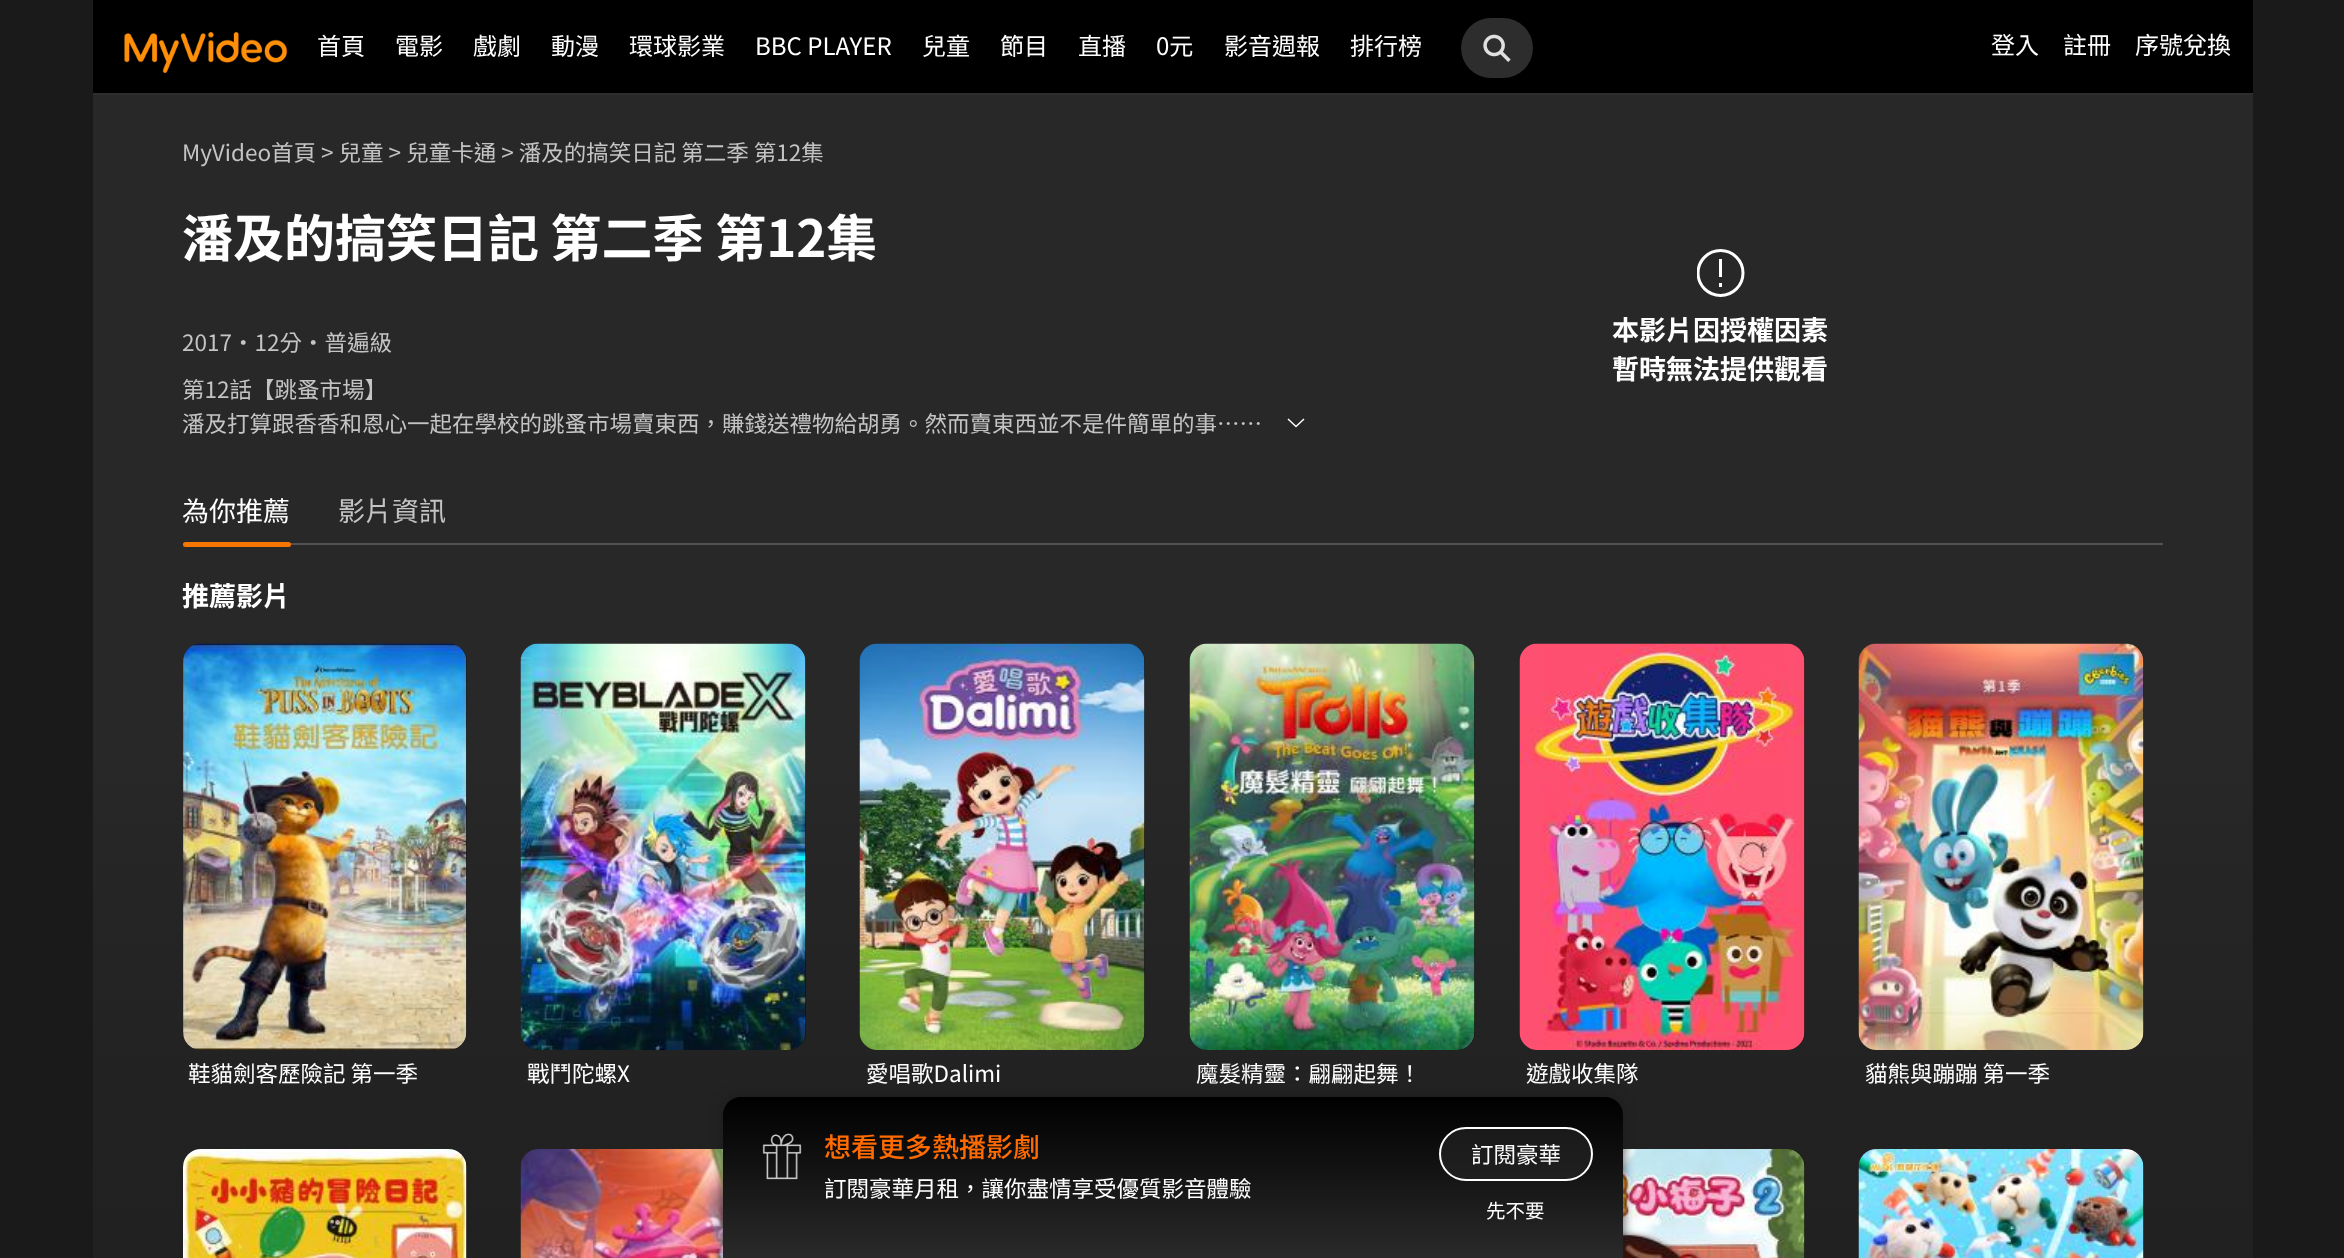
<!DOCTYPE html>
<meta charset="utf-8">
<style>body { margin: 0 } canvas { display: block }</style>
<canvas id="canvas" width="2344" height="1258"></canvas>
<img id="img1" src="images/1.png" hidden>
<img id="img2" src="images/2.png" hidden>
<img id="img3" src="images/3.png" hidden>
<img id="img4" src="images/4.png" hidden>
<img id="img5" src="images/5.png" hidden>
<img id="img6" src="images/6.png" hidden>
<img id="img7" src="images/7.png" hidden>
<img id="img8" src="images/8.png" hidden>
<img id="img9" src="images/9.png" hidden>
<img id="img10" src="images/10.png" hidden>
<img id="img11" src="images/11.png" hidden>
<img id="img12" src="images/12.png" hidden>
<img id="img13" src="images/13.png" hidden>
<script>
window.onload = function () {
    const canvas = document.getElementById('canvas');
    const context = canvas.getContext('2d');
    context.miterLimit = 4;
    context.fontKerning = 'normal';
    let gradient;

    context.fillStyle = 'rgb(26, 26, 26)';
    context.fillRect(0, 0, 2344, 1258);
    context.fillStyle = 'rgb(0, 0, 0)';
    context.fillRect(93, 0, 2160, 93);
    context.fillStyle = 'rgb(45, 45, 45)';
    context.fillRect(93, 93, 2160, 2);
    context.drawImage(document.getElementById('img1'), 124, 32, 164, 41);
    context.beginPath();
    context.roundRect(1461, 18, 72, 60, 30);
    context.fill();
    context.drawImage(document.getElementById('img2'), 1483, 34, 28, 28);
    gradient = context.createLinearGradient(1173, 93, 1173, 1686);
    gradient.addColorStop(0.41, 'rgb(40, 40, 40)');
    gradient.addColorStop(0.44, 'rgb(39, 39, 39)');
    gradient.addColorStop(0.54, 'rgb(36, 36, 36)');
    gradient.addColorStop(0.64, 'rgb(34, 34, 34)');
    gradient.addColorStop(0.71, 'rgb(33, 33, 33)');
    context.fillStyle = gradient;
    context.fillRect(93, 95, 2160, 1163);
    context.beginPath();
    context.moveTo(1304, 419);
    context.lineTo(1296, 426.5);
    context.lineTo(1288, 419);
    context.strokeStyle = 'rgb(255, 255, 255)';
    context.lineWidth = 1.5;
    context.stroke();
    context.save();
    context.beginPath();
    context.rect(1697, 249, 48, 48);
    context.clip();
    context.beginPath();
    context.arc(1720.5, 273, 22.5, 0, 2 * Math.PI);
    context.lineWidth = 3;
    context.stroke();
    context.restore();
    context.fillStyle = 'rgb(255, 255, 255)';
    context.fillRect(1719, 259, 3, 18);
    context.beginPath();
    context.moveTo(1720.5, 287);
    context.lineTo(1720.5, 283);
    context.lineWidth = 3;
    context.stroke();
    context.fillStyle = 'rgb(83, 83, 83)';
    context.fillRect(183, 543, 1980, 2);
    context.fillStyle = 'rgb(245, 118, 0)';
    context.beginPath();
    context.roundRect(183, 542, 108, 5, 2.5);
    context.fill();
    context.fillStyle = 'rgb(18, 18, 18)';
    context.beginPath();
    context.roundRect(183, 644, 284, 406, 18);
    context.fill();
    context.drawImage(document.getElementById('img3'), 183, 643, 284, 407);
    context.beginPath();
    context.roundRect(521, 644, 285, 406, 18);
    context.fill();
    context.drawImage(document.getElementById('img4'), 520, 643, 286, 407);
    context.beginPath();
    context.roundRect(860, 644, 285, 406, 18);
    context.fill();
    context.drawImage(document.getElementById('img5'), 859, 643, 286, 407);
    context.beginPath();
    context.roundRect(1190, 644, 285, 406, 18);
    context.fill();
    context.drawImage(document.getElementById('img6'), 1189, 643, 286, 407);
    context.beginPath();
    context.roundRect(1520, 644, 285, 406, 18);
    context.fill();
    context.drawImage(document.getElementById('img7'), 1519, 643, 286, 407);
    context.beginPath();
    context.roundRect(1859, 644, 285, 406, 18);
    context.fill();
    context.drawImage(document.getElementById('img8'), 1858, 643, 286, 407);
    context.beginPath();
    context.roundRect(183, 1149, 284, 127, 18);
    context.fill();
    context.drawImage(document.getElementById('img9'), 183, 1149, 284, 109);
    context.drawImage(document.getElementById('img10'), 520, 1149, 203, 109);
    context.beginPath();
    context.roundRect(1520, 1149, 285, 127, 18);
    context.fill();
    context.drawImage(document.getElementById('img11'), 1623, 1149, 182, 109);
    context.beginPath();
    context.roundRect(1859, 1149, 285, 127, 18);
    context.fill();
    context.drawImage(document.getElementById('img12'), 1858, 1149, 286, 109);
    context.fillStyle = 'rgba(27, 27, 27, 0.8)';
    context.filter = 'blur(6px)';
    context.beginPath();
    context.roundRect(723, 1095, 900, 162, 18);
    context.fill();
    context.filter = 'none';
    gradient = context.createLinearGradient(1173, 1097, 1173, 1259);
    gradient.addColorStop(0, 'rgb(0, 0, 0)');
    gradient.addColorStop(1, 'rgb(42, 42, 42)');
    context.fillStyle = gradient;
    context.beginPath();
    context.moveTo(741, 1097);
    context.lineTo(1605, 1097);
    context.bezierCurveTo(1615, 1097, 1623, 1105, 1623, 1115);
    context.lineTo(1623, 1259);
    context.lineTo(723, 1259);
    context.lineTo(723, 1115);
    context.bezierCurveTo(723, 1105, 731, 1097, 741, 1097);
    context.closePath();
    context.fill();
    context.drawImage(document.getElementById('img13'), 762, 1133, 40, 47);
    context.fillStyle = 'rgba(38, 38, 38, 0.6)';
    context.beginPath();
    context.roundRect(1440, 1128, 152, 52, 26);
    context.fill();
    context.lineWidth = 2;
    context.stroke();
    context.font = '24px Noto Sans TC';
    context.fillStyle = 'rgb(255, 255, 255)';
    context.fillText('首頁', 317, 55);
    context.fillText('電影', 395, 55);
    context.fillText('戲劇', 473, 55);
    context.fillText('動漫', 551, 55);
    context.fillText('環球影業', 629, 55);
    context.fillText('BBC PLAYER', 755, 55);
    context.fillText('兒童', 922, 55);
    context.fillText('節目', 1000, 55);
    context.fillText('直播', 1078, 55);
    context.fillText('0元', 1156, 55);
    context.fillText('影音週報', 1224, 55);
    context.fillText('排行榜', 1350, 55);
    context.fillText('登入', 1991, 54);
    context.fillText('註冊', 2063, 54);
    context.fillText('序號兌換', 2135, 54);
    context.font = '22.5px Noto Sans TC';
    context.fillStyle = 'rgb(196, 196, 196)';
    context.fillText('MyVideo首頁 > 兒童 > 兒童卡通 > 潘及的搞笑日記 第二季 第12集', 182, 161);
    context.font = 'bold 51px Noto Sans TC';
    context.fillStyle = 'rgb(255, 255, 255)';
    context.fillText('潘及的搞笑日記 第二季 第12集', 182, 257);
    context.font = '22.5px Noto Sans TC';
    context.fillStyle = 'rgb(196, 196, 196)';
    context.fillText('2017・12分・普遍級', 182, 351);
    context.fillText('第12話【跳蚤市場】', 182, 398);
    context.fillText('潘及打算跟香香和恩心一起在學校的跳蚤市場賣東西，賺錢送禮物給胡勇。然而賣東西並不是件簡單的事……', 182, 432);
    context.font = 'bold 27px Noto Sans TC';
    context.fillStyle = 'rgb(255, 255, 255)';
    context.fillText('本影片因授權因素', 1612, 340);
    context.fillText('暫時無法提供觀看', 1612, 379);
    context.font = '27px Noto Sans TC';
    context.fillText('為你推薦', 182, 521);
    context.fillStyle = 'rgb(196, 196, 196)';
    context.fillText('影片資訊', 338, 521);
    context.font = 'bold 27px Noto Sans TC';
    context.fillStyle = 'rgb(255, 255, 255)';
    context.fillText('推薦影片', 182, 606);
    context.font = '22.5px Noto Sans TC';
    context.fillText('鞋貓劍客歷險記 第一季', 188, 1082);
    context.fillText('戰鬥陀螺X', 527, 1082);
    context.fillText('愛唱歌Dalimi', 866, 1082);
    context.fillText('魔髮精靈：翩翩起舞！', 1196, 1082);
    context.fillText('遊戲收集隊', 1526, 1082);
    context.fillText('貓熊與蹦蹦 第一季', 1865, 1082);
    context.font = '500 27px Noto Sans TC';
    context.fillStyle = 'rgb(255, 107, 0)';
    context.fillText('想看更多熱播影劇', 824, 1157);
    context.font = '22.5px Noto Sans TC';
    context.fillStyle = 'rgb(255, 255, 255)';
    context.fillText('訂閱豪華月租，讓你盡情享受優質影音體驗', 824, 1197);
    context.fillText('訂閱豪華', 1471, 1163);
    context.font = '19.5px Noto Sans TC';
    context.fillText('先不要', 1486, 1218);
};
</script>
